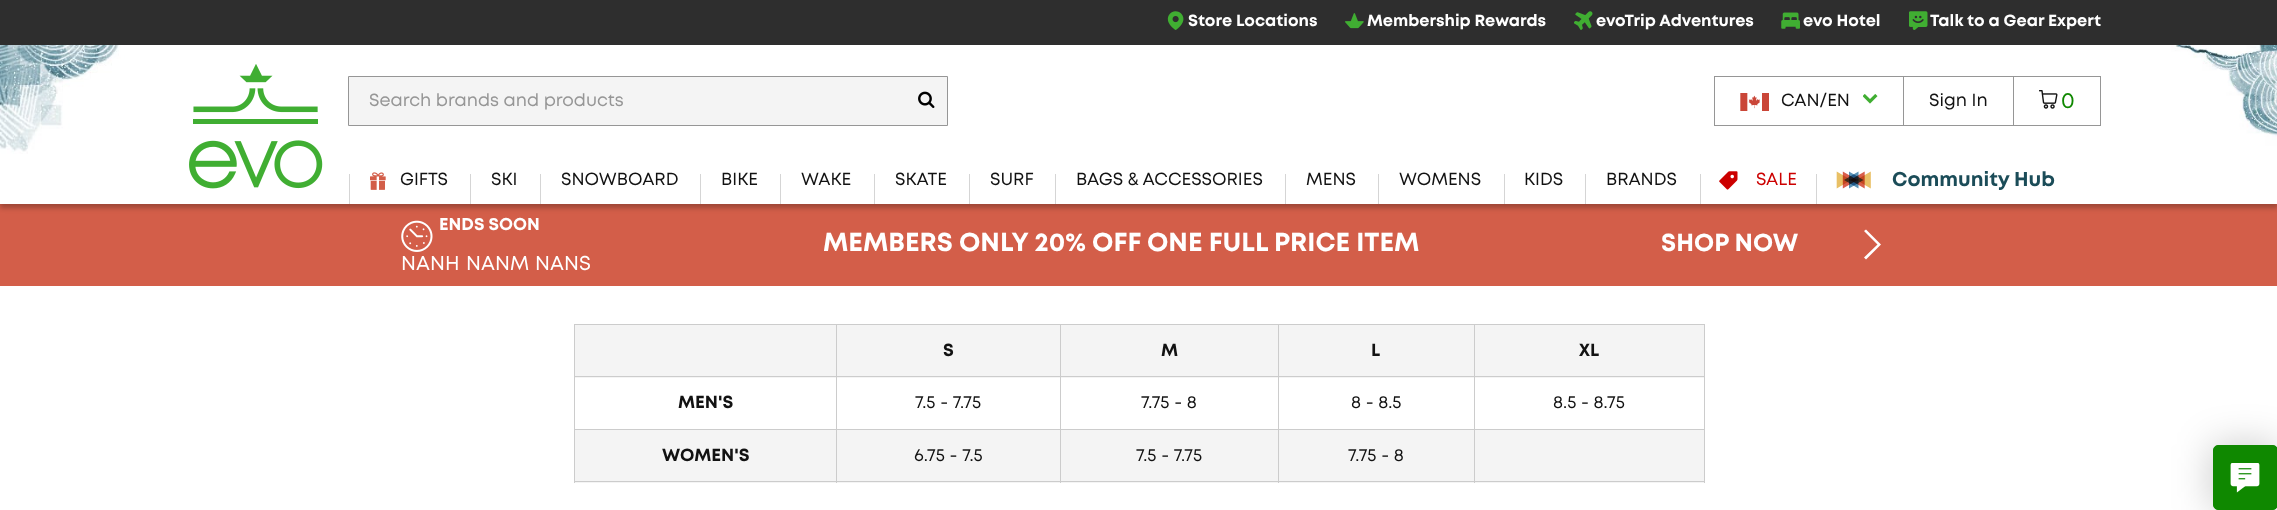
<!DOCTYPE html>
<meta charset="utf-8">
<style>body { margin: 0 } canvas { display: block }</style>
<canvas id="canvas" width="2277" height="510"></canvas>
<img id="img1" src="images/1.png" hidden>
<img id="img2" src="images/2.png" hidden>
<img id="img3" src="images/3.png" hidden>
<img id="img4" src="images/4.png" hidden>
<img id="img5" src="images/5.png" hidden>
<img id="img6" src="images/12.png" hidden>
<img id="img7" src="images/6.png" hidden>
<img id="img8" src="images/7.png" hidden>
<img id="img9" src="images/8.png" hidden>
<img id="img10" src="images/9.png" hidden>
<img id="img11" src="images/10.png" hidden>
<img id="img12" src="images/11.png" hidden>
<img id="img13" src="images/13.png" hidden>
<img id="img14" src="images/14.png" hidden>
<img id="img15" src="images/15.png" hidden>
<img id="img16" src="images/16.png" hidden>
<script>
window.onload = function () {
    const canvas = document.getElementById('canvas');
    const context = canvas.getContext('2d');
    context.miterLimit = 4;
    context.fontKerning = 'normal';

    context.fillStyle = 'rgb(255, 255, 255)';
    context.fillRect(0, 0, 2277, 510);
    context.fillStyle = 'rgb(211, 94, 73)';
    context.fillRect(0, 204, 2277, 82);
    context.fillStyle = 'rgba(0, 0, 0, 0.25)';
    context.filter = 'blur(2.5px)';
    context.beginPath();
    context.rect(0, 4, 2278, 204);
    context.fill();
    context.filter = 'none';
    context.fillStyle = 'rgb(46, 46, 46)';
    context.fillRect(0, 0, 2277, 45);
    context.drawImage(document.getElementById('img1'), 1167, 11, 17, 19);
    context.drawImage(document.getElementById('img2'), 1345, 13, 19, 16);
    context.drawImage(document.getElementById('img3'), 1574, 11, 19, 19);
    context.drawImage(document.getElementById('img4'), 1781, 12, 19, 17);
    context.drawImage(document.getElementById('img5'), 1909, 11, 19, 19);
    context.fillStyle = 'rgb(255, 255, 255)';
    context.fillRect(0, 45, 2277, 159);
    context.drawImage(document.getElementById('img6'), 0, 45, 2277, 109);
    context.drawImage(document.getElementById('img7'), 189, 64, 134, 125);
    context.fillStyle = 'rgb(244, 244, 244)';
    context.beginPath();
    context.rect(348.5, 76.5, 599, 49);
    context.fill();
    context.strokeStyle = 'rgb(150, 150, 150)';
    context.stroke();
    context.drawImage(document.getElementById('img8'), 918, 91, 17, 17);
    context.fillStyle = 'rgb(150, 150, 150)';
    context.fillRect(1714, 76, 189, 1);
    context.fillRect(1714, 125, 189, 1);
    context.fillRect(1714, 76, 1, 50);
    context.drawImage(document.getElementById('img9'), 1740, 93, 29, 18);
    context.drawImage(document.getElementById('img10'), 1863, 94, 15, 10);
    context.strokeRect(1903.5, 76.5, 110, 49);
    context.fillRect(2014, 76, 87, 1);
    context.fillRect(2100, 76, 1, 50);
    context.fillRect(2014, 125, 87, 1);
    context.drawImage(document.getElementById('img11'), 2039, 90, 19, 19);
    context.drawImage(document.getElementById('img12'), 401, 220, 32, 32);
    context.fillStyle = 'rgb(255, 255, 255)';
    context.beginPath();
    context.moveTo(1866, 259.5);
    context.lineTo(1864, 257.5);
    context.lineTo(1877.5, 244.5);
    context.lineTo(1864, 231);
    context.lineTo(1866, 229.5);
    context.lineTo(1881, 244.5);
    context.closePath();
    context.fill();
    context.fillStyle = 'rgb(244, 244, 244)';
    context.fillRect(575, 325, 1129, 53);
    context.fillStyle = 'rgb(204, 204, 204)';
    context.fillRect(1474, 324, 231, 1);
    context.fillRect(1474, 376, 231, 1);
    context.fillRect(1474, 429, 231, 1);
    context.fillStyle = 'rgb(244, 244, 244)';
    context.fillRect(575, 430, 1129, 53);
    context.fillStyle = 'rgb(204, 204, 204)';
    context.fillRect(1704, 429, 1, 54);
    context.fillRect(1474, 481, 231, 1);
    context.fillRect(1474, 429, 1, 54);
    context.fillRect(1278, 429, 197, 1);
    context.fillRect(1474, 376, 1, 54);
    context.fillRect(1278, 376, 197, 1);
    context.fillRect(1474, 324, 1, 54);
    context.fillRect(1278, 324, 197, 1);
    context.fillRect(1278, 481, 197, 1);
    context.fillRect(1278, 429, 1, 54);
    context.fillRect(1060, 429, 219, 1);
    context.fillRect(1278, 376, 1, 54);
    context.fillRect(1060, 376, 219, 1);
    context.fillRect(1278, 324, 1, 54);
    context.fillRect(1060, 324, 219, 1);
    context.fillRect(1060, 481, 219, 1);
    context.fillRect(1060, 429, 1, 54);
    context.fillRect(836, 429, 225, 1);
    context.fillRect(1060, 376, 1, 54);
    context.fillRect(836, 376, 225, 1);
    context.fillRect(1060, 324, 1, 54);
    context.fillRect(836, 324, 225, 1);
    context.fillRect(836, 481, 225, 1);
    context.fillRect(836, 429, 1, 54);
    context.fillRect(574, 429, 264, 1);
    context.fillRect(836, 376, 1, 54);
    context.fillRect(574, 376, 264, 1);
    context.fillRect(836, 324, 1, 54);
    context.fillRect(574, 324, 264, 1);
    context.fillRect(574, 481, 264, 1);
    context.fillRect(574, 429, 1, 54);
    context.fillRect(574, 376, 1, 54);
    context.fillRect(574, 324, 1, 54);
    context.fillRect(1704, 376, 1, 54);
    context.fillRect(1704, 324, 1, 54);
    context.fillStyle = 'rgb(213, 213, 213)';
    context.fillRect(349, 174, 1, 30);
    context.drawImage(document.getElementById('img13'), 370, 172, 16, 18);
    context.fillRect(470, 174, 1, 30);
    context.fillRect(540, 174, 1, 30);
    context.fillRect(700, 174, 1, 30);
    context.fillRect(780, 174, 1, 30);
    context.fillRect(874, 174, 1, 30);
    context.fillRect(969, 174, 1, 30);
    context.fillRect(1055, 174, 1, 30);
    context.fillRect(1285, 174, 1, 30);
    context.fillRect(1378, 174, 1, 30);
    context.fillRect(1504, 174, 1, 30);
    context.fillRect(1585, 174, 1, 30);
    context.fillRect(1700, 174, 1, 30);
    context.drawImage(document.getElementById('img14'), 1719, 171, 19, 19);
    context.fillRect(1816, 174, 1, 30);
    context.drawImage(document.getElementById('img15'), 1836, 171, 35, 18);
    context.fillStyle = 'rgba(0, 0, 0, 0.2)';
    context.filter = 'blur(19px)';
    context.beginPath();
    context.roundRect(2211, 444, 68, 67, 6);
    context.fill();
    context.filter = 'none';
    context.fillStyle = 'rgb(15, 136, 0)';
    context.beginPath();
    context.roundRect(2213.5, 445.5, 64, 64, 4.5);
    context.fill();
    context.strokeStyle = 'rgb(15, 136, 0)';
    context.stroke();
    context.drawImage(document.getElementById('img16'), 2230, 463, 30, 30);
    context.font = '800 16.25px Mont';
    context.fillStyle = 'rgb(255, 255, 255)';
    context.fillText('Store Locations', 1188, 26);
    context.fillText('Membership Rewards', 1367, 26);
    context.fillText('evoTrip Adventures', 1596, 26);
    context.fillText('evo Hotel', 1803, 26);
    context.fillText('Talk to a Gear Expert', 1930, 26);
    context.font = '600 17.5px Mont';
    context.fillStyle = 'rgb(150, 150, 150)';
    context.fillText('Search brands and products', 369, 106);
    context.fillStyle = 'rgb(18, 18, 18)';
    context.fillText('CAN/EN', 1781, 106);
    context.fillText('Sign In', 1929, 106);
    context.font = '600 22px Mont';
    context.fillStyle = 'rgb(15, 136, 0)';
    context.fillText('0', 2061, 108);
    context.font = '800 17px Mont';
    context.fillStyle = 'rgb(255, 255, 255)';
    context.fillText('ENDS SOON', 439, 230);
    context.font = '600 20px Mont';
    context.fillText('NANH', 401, 270);
    context.fillText('NANM', 466, 270);
    context.fillText('NANS', 535, 270);
    context.font = '800 26px Mont';
    context.fillText('MEMBERS ONLY 20% OFF ONE FULL PRICE ITEM', 823, 251);
    context.font = '800 24.5px Mont';
    context.fillText('SHOP NOW', 1661, 251);
    context.font = '800 17.5px Mont';
    context.fillStyle = 'rgb(18, 18, 18)';
    context.fillText('S', 943, 356);
    context.fillText('M', 1161, 356);
    context.fillText('L', 1371, 356);
    context.fillText('XL', 1579, 356);
    context.fillText('MEN\'S', 678, 408);
    context.font = '600 17.5px Mont';
    context.fillText('7.5 - 7.75', 915, 408);
    context.fillText('7.75 - 8', 1141, 408);
    context.fillText('8 - 8.5', 1351, 408);
    context.fillText('8.5 - 8.75', 1553, 408);
    context.font = '800 17.5px Mont';
    context.fillText('WOMEN\'S', 662, 461);
    context.font = '600 17.5px Mont';
    context.fillText('6.75 - 7.5', 914, 461);
    context.fillText('7.5 - 7.75', 1136, 461);
    context.fillText('7.75 - 8', 1348, 461);
    context.fillText('GIFTS', 400, 185);
    context.fillText('SKI', 491, 185);
    context.fillText('SNOWBOARD', 561, 185);
    context.fillText('BIKE', 721, 185);
    context.fillText('WAKE', 801, 185);
    context.fillText('SKATE', 895, 185);
    context.fillText('SURF', 990, 185);
    context.fillText('BAGS & ACCESSORIES', 1076, 185);
    context.fillText('MENS', 1306, 185);
    context.fillText('WOMENS', 1399, 185);
    context.fillText('KIDS', 1524, 185);
    context.fillText('BRANDS', 1606, 185);
    context.fillStyle = 'rgb(204, 0, 0)';
    context.fillText('SALE', 1756, 185);
    context.font = '800 20px Mont';
    context.fillStyle = 'rgb(27, 76, 88)';
    context.fillText('Community Hub', 1892, 186);
};
</script>
